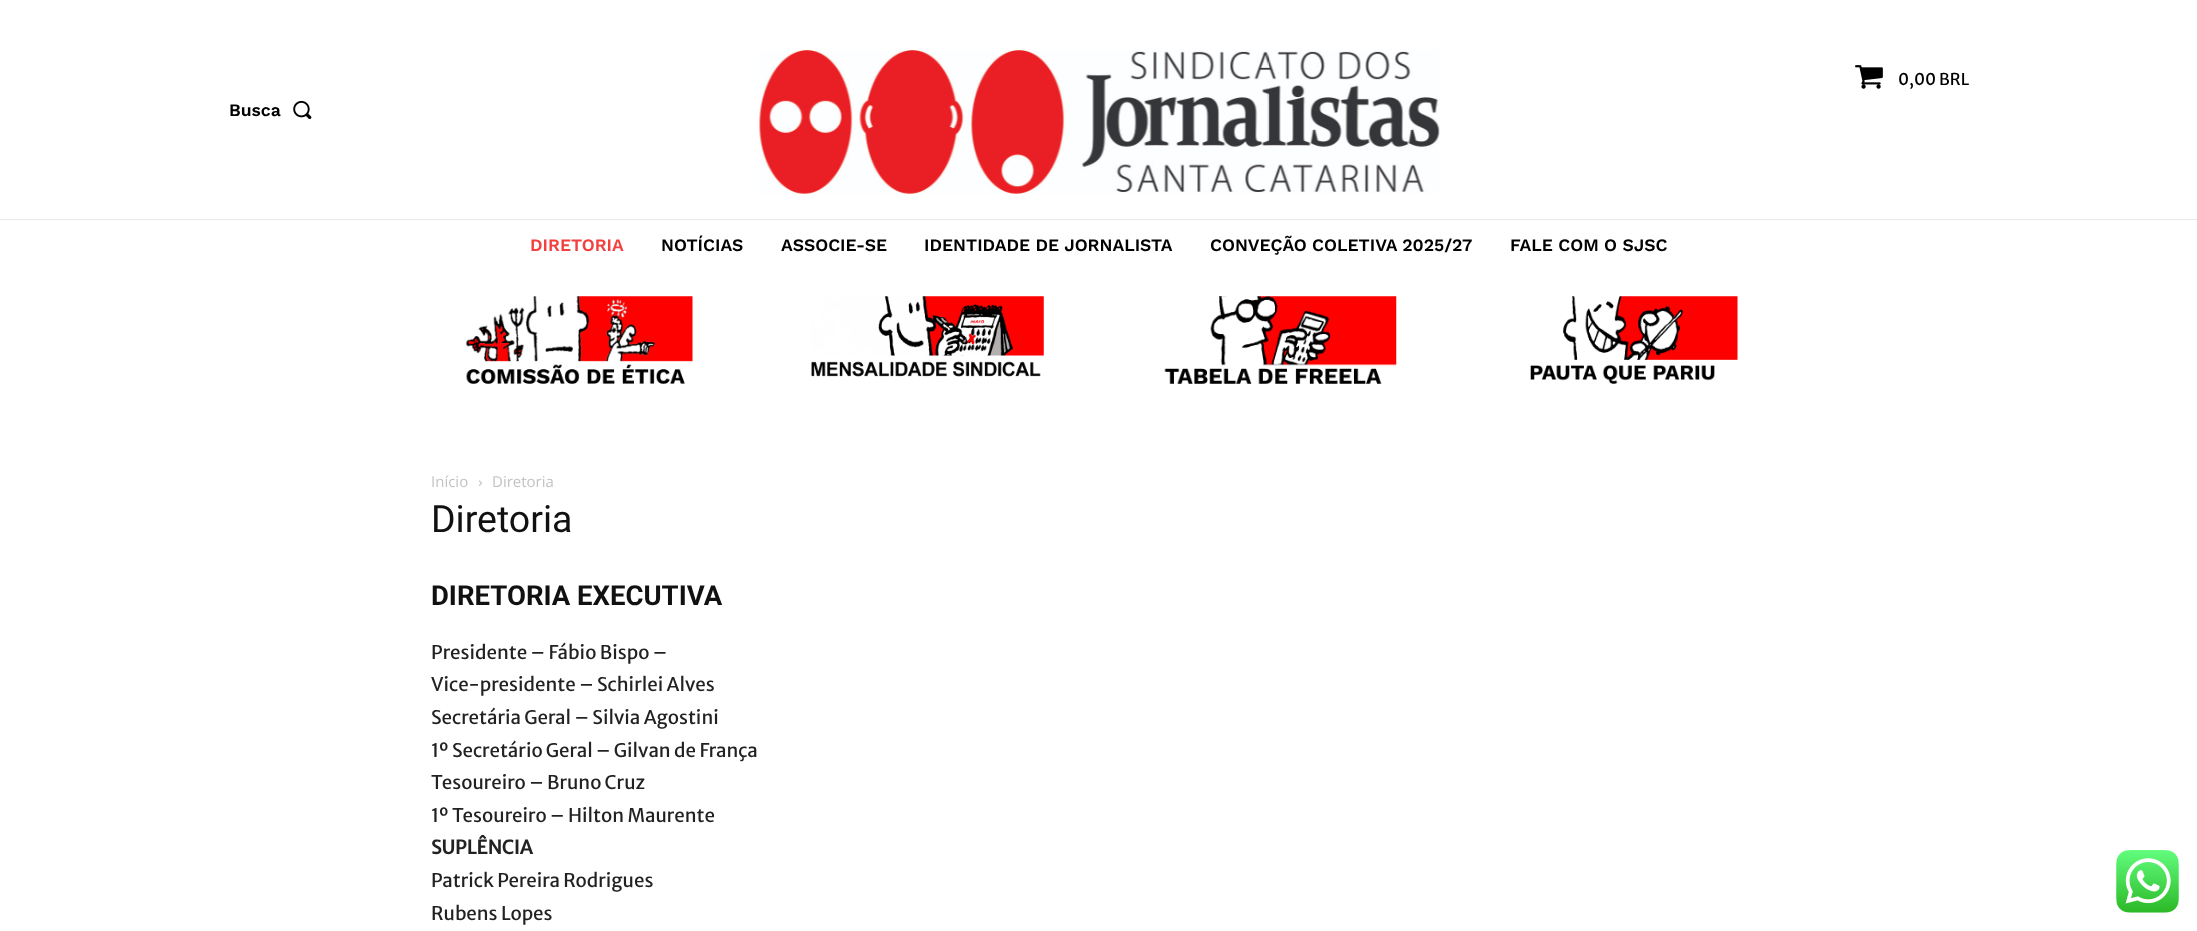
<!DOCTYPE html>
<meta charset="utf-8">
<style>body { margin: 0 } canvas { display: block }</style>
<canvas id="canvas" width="2197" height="931"></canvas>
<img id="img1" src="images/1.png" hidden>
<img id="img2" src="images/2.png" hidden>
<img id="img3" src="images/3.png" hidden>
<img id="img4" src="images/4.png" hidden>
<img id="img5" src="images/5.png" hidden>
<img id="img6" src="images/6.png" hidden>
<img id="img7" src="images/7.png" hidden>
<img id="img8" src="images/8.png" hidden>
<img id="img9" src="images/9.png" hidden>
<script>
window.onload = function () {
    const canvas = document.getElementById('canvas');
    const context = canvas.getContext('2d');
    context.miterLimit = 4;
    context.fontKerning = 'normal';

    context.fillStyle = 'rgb(255, 255, 255)';
    context.fillRect(0, 0, 2197, 931);
    context.drawImage(document.getElementById('img1'), 759, 50, 681, 144);
    context.drawImage(document.getElementById('img2'), 1855, 65, 28, 24);
    context.drawImage(document.getElementById('img3'), 293, 100, 19, 19);
    context.fillStyle = 'rgb(234, 234, 234)';
    context.fillRect(0, 219, 2197, 1);
    context.drawImage(document.getElementById('img4'), 465, 296, 228, 88);
    context.drawImage(document.getElementById('img5'), 811, 296, 233, 81);
    context.drawImage(document.getElementById('img6'), 1164, 296, 233, 88);
    context.drawImage(document.getElementById('img7'), 1530, 296, 208, 88);
    context.drawImage(document.getElementById('img8'), 478, 480, 4, 6);
    context.drawImage(document.getElementById('img9'), 2116, 850, 63, 63);
    context.font = '16.25px Merriweather Sans';
    context.fillStyle = 'rgb(0, 0, 0)';
    context.fillText('0,00 BRL', 1898, 85);
    context.font = '600 17.5px Work Sans';
    context.fillText('Busca', 229, 116);
    context.fillStyle = 'rgb(244, 63, 63)';
    context.fillText('DIRETORIA', 530, 251);
    context.fillStyle = 'rgb(0, 0, 0)';
    context.fillText('NOTÍCIAS', 661, 251);
    context.fillText('ASSOCIE-SE', 781, 251);
    context.fillText('IDENTIDADE DE JORNALISTA', 924, 251);
    context.fillText('CONVEÇÃO COLETIVA 2025/27', 1210, 251);
    context.fillText('FALE COM O SJSC', 1510, 251);
    context.font = '15px Open Sans';
    context.fillStyle = 'rgb(195, 195, 195)';
    context.fillText('Início', 431, 487);
    context.fillText('Diretoria', 492, 487);
    context.font = '37.5px Roboto';
    context.fillStyle = 'rgb(17, 17, 17)';
    context.fillText('Diretoria', 431, 532);
    context.font = 'bold 27.5px Roboto';
    context.fillText('DIRETORIA EXECUTIVA', 431, 605);
    context.font = '18.75px Merriweather Sans';
    context.fillStyle = 'rgb(34, 34, 34)';
    context.fillText('Presidente – Fábio Bispo –', 431, 659);
    context.fillText('Vice-presidente – Schirlei Alves', 431, 691);
    context.fillText('Secretária Geral – Silvia Agostini', 431, 724);
    context.fillText('1º Secretário Geral – Gilvan de França', 431, 757);
    context.fillText('Tesoureiro – Bruno Cruz', 431, 789);
    context.fillText('1º Tesoureiro – Hilton Maurente', 431, 822);
    context.font = 'bold 18.75px Merriweather Sans';
    context.fillText('SUPLÊNCIA', 431, 854);
    context.font = '18.75px Merriweather Sans';
    context.fillText('Patrick Pereira Rodrigues', 431, 887);
    context.fillText('Rubens Lopes', 431, 920);
};
</script>
